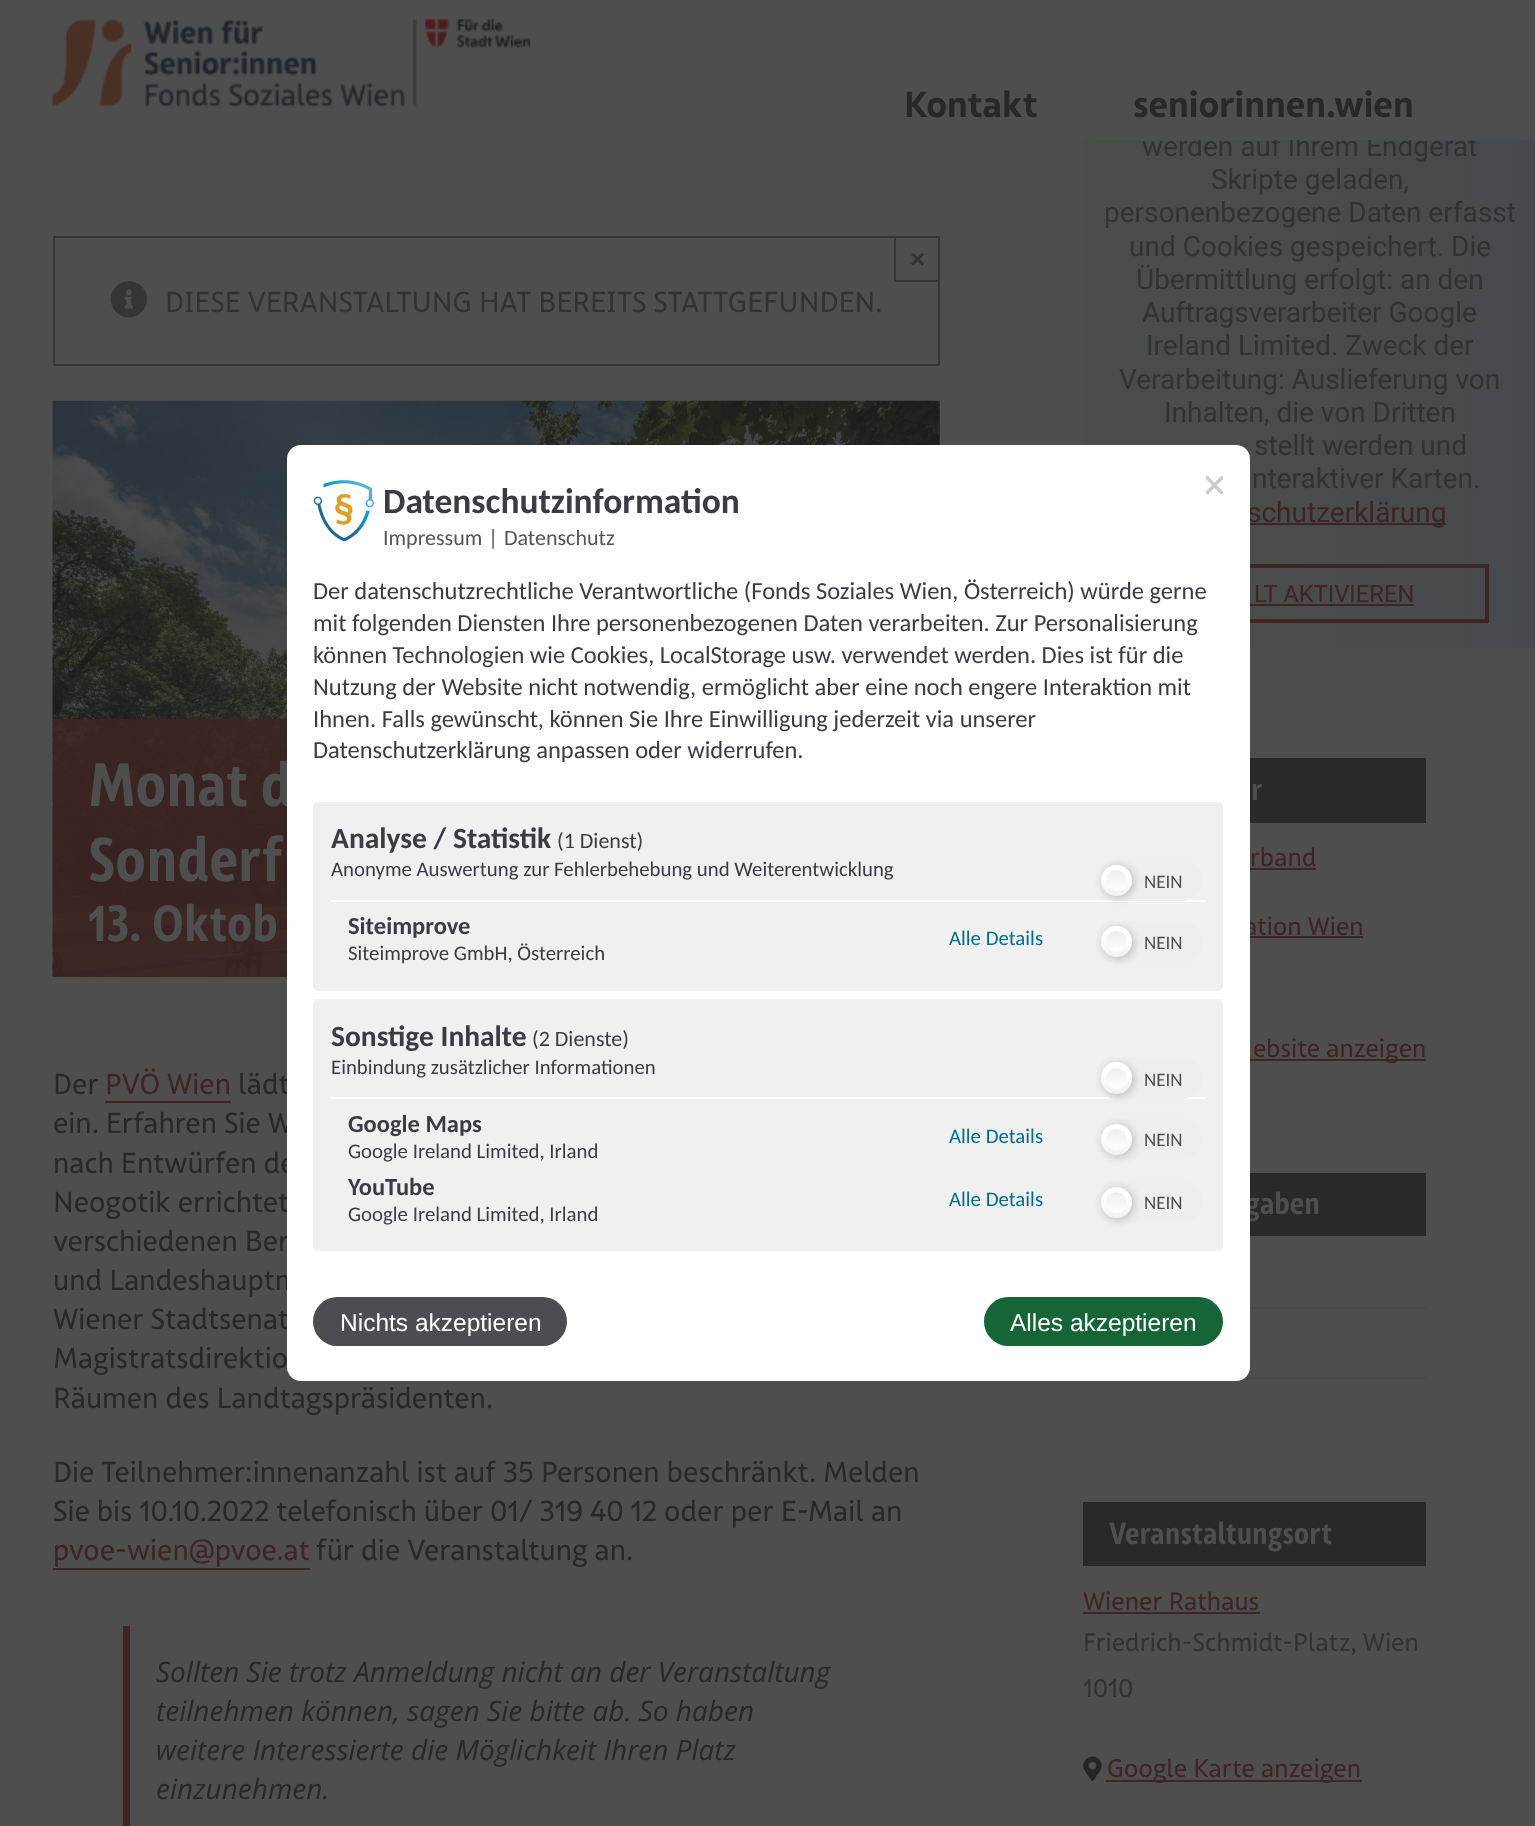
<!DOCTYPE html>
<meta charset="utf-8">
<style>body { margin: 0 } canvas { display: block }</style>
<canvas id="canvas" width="1535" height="1826"></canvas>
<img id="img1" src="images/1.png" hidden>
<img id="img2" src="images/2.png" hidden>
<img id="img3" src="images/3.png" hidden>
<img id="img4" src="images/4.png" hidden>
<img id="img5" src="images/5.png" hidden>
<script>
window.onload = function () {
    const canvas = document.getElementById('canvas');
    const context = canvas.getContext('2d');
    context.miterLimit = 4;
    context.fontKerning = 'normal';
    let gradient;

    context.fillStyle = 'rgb(78, 78, 78)';
    context.fillRect(0, 0, 1535, 1826);
    context.drawImage(document.getElementById('img1'), 52, 19, 479, 88);
    context.strokeStyle = 'rgb(53, 53, 53)';
    context.lineWidth = 2;
    context.strokeRect(54, 237, 885, 128);
    context.fillStyle = 'rgb(53, 53, 53)';
    context.fillRect(894, 280, 46, 2);
    context.fillRect(894, 236, 2, 46);
    context.drawImage(document.getElementById('img2'), 110, 281, 37, 37);
    context.drawImage(document.getElementById('img3'), 52, 400, 888, 577);
    context.fillStyle = 'rgba(62, 36, 35, 0.85)';
    context.fillRect(53, 719, 234, 258);
    context.fillStyle = 'rgb(62, 36, 35)';
    context.fillRect(105, 1101, 126, 2);
    context.fillRect(53, 1568, 257, 2);
    context.fillRect(123, 1626, 7, 200);
    gradient = context.createLinearGradient(1083, 324, 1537, 324);
    gradient.addColorStop(0, 'rgb(73, 78, 73)');
    gradient.addColorStop(1, 'rgb(71, 73, 78)');
    context.fillStyle = gradient;
    context.beginPath();
    context.roundRect(1083, 0, 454, 648, 5);
    context.fill();
    context.fillStyle = 'rgb(62, 36, 35)';
    context.fillRect(1250, 523, 196, 2);
    context.strokeStyle = 'rgb(62, 36, 35)';
    context.lineWidth = 4;
    context.strokeRect(1126, 566, 361, 55);
    context.fillRect(1250, 604, 164, 2);
    context.fillStyle = 'rgb(41, 41, 41)';
    context.fillRect(1083, 1502, 343, 64);
    context.fillStyle = 'rgb(62, 36, 35)';
    context.fillRect(1083, 1612, 177, 2);
    context.drawImage(document.getElementById('img4'), 1083, 1756, 19, 25);
    context.fillRect(1106, 1780, 256, 2);
    context.fillStyle = 'rgb(41, 41, 41)';
    context.fillRect(1250, 758, 176, 65);
    context.fillStyle = 'rgb(62, 36, 35)';
    context.fillRect(1250, 868, 66, 2);
    context.fillRect(1250, 936, 113, 2);
    context.fillRect(1250, 1059, 176, 2);
    context.fillStyle = 'rgb(41, 41, 41)';
    context.fillRect(1250, 1173, 176, 63);
    context.fillStyle = 'rgb(74, 74, 74)';
    context.fillRect(1250, 1307, 176, 2);
    context.fillRect(1243, 1377, 183, 2);
    context.font = 'bold 35px "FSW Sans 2"';
    context.fillStyle = 'rgb(40, 40, 40)';
    context.fillText('Kontakt', 904, 117);
    context.font = 'bold 26px Liberation Sans';
    context.fillStyle = 'rgb(50, 50, 50)';
    context.fillText('×', 910, 268);
    context.font = '28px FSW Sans';
    context.fillText('DIESE VERANSTALTUNG HAT BEREITS STATTGEFUNDEN.', 165, 312);
    context.font = 'bold 59.5px FSW Sans';
    context.fillStyle = 'rgb(78, 78, 78)';
    context.fillText('Monat d', 88, 806);
    context.fillText('Sonderf', 88, 881);
    context.font = 'bold 49px FSW Sans';
    context.fillText('13. Oktob', 88, 941);
    context.font = '28px FSW Sans';
    context.fillStyle = 'rgb(40, 40, 40)';
    context.fillText('Der', 53, 1094);
    context.fillStyle = 'rgb(62, 36, 35)';
    context.fillText('PVÖ Wien', 105, 1094);
    context.fillStyle = 'rgb(40, 40, 40)';
    context.fillText('lädt', 238, 1094);
    context.fillText('ein. Erfahren Sie W', 53, 1133);
    context.fillText('nach Entwürfen de', 53, 1173);
    context.fillText('Neogotik errichtet', 53, 1212);
    context.fillText('verschiedenen Ber', 53, 1251);
    context.fillText('und Landeshauptm', 53, 1290);
    context.fillText('Wiener Stadtsenat', 53, 1329);
    context.fillText('Magistratsdirektio', 53, 1368);
    context.fillText('Räumen des Landtagspräsidenten.', 53, 1408);
    context.fillText('Die Teilnehmer:innenanzahl ist auf 35 Personen beschränkt. Melden', 53, 1482);
    context.fillText('Sie bis 10.10.2022 telefonisch über 01/ 319 40 12 oder per E-Mail an', 53, 1521);
    context.fillStyle = 'rgb(62, 36, 35)';
    context.fillText('pvoe-wien@pvoe.at', 53, 1560);
    context.fillStyle = 'rgb(40, 40, 40)';
    context.fillText('für die Veranstaltung an.', 316, 1560);
    context.font = 'italic 28px Open Sans';
    context.fillText('Sollten Sie trotz Anmeldung nicht an der Veranstaltung', 156, 1682);
    context.fillText('teilnehmen können, sagen Sie bitte ab. So haben', 156, 1721);
    context.fillText('weitere Interessierte die Möglichkeit Ihren Platz', 156, 1760);
    context.fillText('einzunehmen.', 156, 1799);
    context.font = '28px Roboto';
    context.fillStyle = 'rgb(50, 50, 50)';
    context.fillText('werden auf Ihrem Endgerät', 1142, 156);
    context.fillStyle = 'rgb(78, 78, 78)';
    context.fillRect(1083, 0, 452, 140);
    context.font = 'bold 35px "FSW Sans 2"';
    context.fillStyle = 'rgb(40, 40, 40)';
    context.fillText('seniorinnen.wien', 1133, 117);
    context.font = '28px Roboto';
    context.fillStyle = 'rgb(50, 50, 50)';
    context.fillText('Skripte geladen,', 1211, 189);
    context.fillText('personenbezogene Daten erfasst', 1104, 222);
    context.fillText('und Cookies gespeichert. Die', 1129, 256);
    context.fillText('Übermittlung erfolgt: an den', 1136, 289);
    context.fillText('Auftragsverarbeiter Google', 1142, 322);
    context.fillText('Ireland Limited. Zweck der', 1146, 355);
    context.fillText('Verarbeitung: Auslieferung von', 1119, 389);
    context.fillText('Inhalten, die von Dritten', 1164, 422);
    context.fillText('stellt werden und', 1254, 455);
    context.fillText('nteraktiver Karten.', 1252, 488);
    context.fillStyle = 'rgb(62, 36, 35)';
    context.fillText('schutzerklärung', 1247, 522);
    context.font = '23.75px Roboto';
    context.fillText('LT AKTIVIEREN', 1254, 602);
    context.font = 'bold 29.75px FSW Sans';
    context.fillStyle = 'rgb(78, 78, 78)';
    context.fillText('Veranstaltungsort', 1109, 1544);
    context.font = '24.5px FSW Sans';
    context.fillStyle = 'rgb(62, 36, 35)';
    context.fillText('Wiener Rathaus', 1083, 1610);
    context.fillStyle = 'rgb(50, 50, 50)';
    context.fillText('Friedrich-Schmidt-Platz, Wien', 1083, 1651);
    context.fillText('1010', 1083, 1697);
    context.fillStyle = 'rgb(62, 36, 35)';
    context.fillText('Google Karte anzeigen', 1107, 1777);
    context.font = 'bold 29.75px FSW Sans';
    context.fillStyle = 'rgb(78, 78, 78)';
    context.fillText('r', 1251, 800);
    context.font = '24.5px FSW Sans';
    context.fillStyle = 'rgb(62, 36, 35)';
    context.fillText('rband', 1250, 866);
    context.fillText('ation Wien', 1244, 935);
    context.fillText('ebsite anzeigen', 1253, 1057);
    context.font = 'bold 29.75px FSW Sans';
    context.fillStyle = 'rgb(78, 78, 78)';
    context.fillText('gaben', 1245, 1214);
    context.fillStyle = 'rgb(255, 255, 255)';
    context.beginPath();
    context.roundRect(287, 445, 963, 936, 14);
    context.fill();
    context.drawImage(document.getElementById('img5'), 313, 480, 61, 61);
    context.save();
    context.beginPath();
    context.rect(1206, 476, 17, 18);
    context.clip();
    context.beginPath();
    context.moveTo(1206, 476.5);
    context.lineTo(1223, 494);
    context.moveTo(1206, 494);
    context.lineTo(1223, 476.5);
    context.strokeStyle = 'rgb(204, 204, 204)';
    context.lineWidth = 3.5;
    context.stroke();
    context.restore();
    context.font = 'bold 35.5px Carlito';
    context.fillStyle = 'rgb(59, 59, 69)';
    context.fillText('Datenschutzinformation', 383, 513);
    context.font = '22px Carlito';
    context.fillStyle = 'rgb(85, 85, 85)';
    context.fillText('Impressum', 383, 545);
    context.fillText('|', 488, 545);
    context.fillText('Datenschutz', 504, 545);
    context.font = '24.5px Carlito';
    context.fillStyle = 'rgb(59, 59, 69)';
    context.fillText('Der datenschutzrechtliche Verantwortliche (Fonds Soziales Wien, Österreich) würde gerne', 313, 599);
    context.fillText('mit folgenden Diensten Ihre personenbezogenen Daten verarbeiten. Zur Personalisierung', 313, 631);
    context.fillText('können Technologien wie Cookies, LocalStorage usw. verwendet werden. Dies ist für die', 313, 663);
    context.fillText('Nutzung der Website nicht notwendig, ermöglicht aber eine noch engere Interaktion mit', 313, 695);
    context.fillText('Ihnen. Falls gewünscht, können Sie Ihre Einwilligung jederzeit via unserer', 313, 727);
    context.fillText('Datenschutzerklärung anpassen oder widerrufen.', 313, 758);
    context.fillStyle = 'rgb(240, 240, 240)';
    context.beginPath();
    context.roundRect(313, 802, 910, 189, 5);
    context.fill();
    context.font = 'bold 29.5px Carlito';
    context.fillStyle = 'rgb(59, 59, 69)';
    context.fillText('Analyse / Statistik', 331, 848);
    context.font = '22px Carlito';
    context.fillText('(1 Dienst)', 557, 848);
    context.font = '20.8px Carlito';
    context.fillText('Anonyme Auswertung zur Fehlerbehebung und Weiterentwicklung', 331, 876);
    context.fillStyle = 'rgb(255, 255, 255)';
    context.fillRect(331, 900, 875, 2);
    context.fillStyle = 'rgb(236, 238, 239)';
    context.beginPath();
    context.roundRect(1096, 859, 106, 42, 21);
    context.fill();
    context.fillStyle = 'rgba(0, 0, 0, 0.2)';
    context.filter = 'blur(4.5px)';
    context.beginPath();
    context.roundRect(1103, 866, 31, 32, 15.5);
    context.fill();
    context.filter = 'none';
    gradient = context.createLinearGradient(1117, 865, 1117, 897);
    gradient.addColorStop(0.4, 'rgb(255, 255, 255)');
    gradient.addColorStop(1, 'rgb(240, 240, 240)');
    context.fillStyle = gradient;
    context.beginPath();
    context.arc(1116.5, 880.5, 15.5, 0, 2 * Math.PI);
    context.fill();
    gradient = context.createLinearGradient(1117, 870, 1117, 891);
    gradient.addColorStop(0, 'rgb(238, 238, 238)');
    gradient.addColorStop(1, 'rgb(255, 255, 255)');
    context.fillStyle = gradient;
    context.beginPath();
    context.arc(1116.5, 880.5, 10.5, 0, 2 * Math.PI);
    context.fill();
    context.font = '19px Carlito';
    context.fillStyle = 'rgb(78, 78, 78)';
    context.fillText('NEIN', 1144, 888);
    context.font = 'bold 24.5px Carlito';
    context.fillStyle = 'rgb(59, 59, 69)';
    context.fillText('Siteimprove', 348, 934);
    context.font = '20.8px Carlito';
    context.fillText('Siteimprove GmbH, Österreich', 348, 960);
    context.fillStyle = 'rgb(0, 109, 145)';
    context.fillText('Alle Details', 949, 945);
    context.fillStyle = 'rgb(236, 238, 239)';
    context.beginPath();
    context.roundRect(1096, 921, 106, 42, 21);
    context.fill();
    context.fillStyle = 'rgba(0, 0, 0, 0.2)';
    context.filter = 'blur(4.5px)';
    context.beginPath();
    context.roundRect(1103, 928, 31, 31, 15.5);
    context.fill();
    context.filter = 'none';
    gradient = context.createLinearGradient(1117, 926, 1117, 958);
    gradient.addColorStop(0.4, 'rgb(255, 255, 255)');
    gradient.addColorStop(1, 'rgb(240, 240, 240)');
    context.fillStyle = gradient;
    context.beginPath();
    context.arc(1116.5, 941.5, 15.5, 0, 2 * Math.PI);
    context.fill();
    gradient = context.createLinearGradient(1117, 932, 1117, 953);
    gradient.addColorStop(0, 'rgb(238, 238, 238)');
    gradient.addColorStop(1, 'rgb(255, 255, 255)');
    context.fillStyle = gradient;
    context.beginPath();
    context.arc(1116.5, 941.5, 10.5, 0, 2 * Math.PI);
    context.fill();
    context.font = '19px Carlito';
    context.fillStyle = 'rgb(78, 78, 78)';
    context.fillText('NEIN', 1144, 949);
    context.fillStyle = 'rgb(240, 240, 240)';
    context.beginPath();
    context.roundRect(313, 999, 910, 252, 5);
    context.fill();
    context.font = 'bold 29.5px Carlito';
    context.fillStyle = 'rgb(59, 59, 69)';
    context.fillText('Sonstige Inhalte', 331, 1046);
    context.font = '22px Carlito';
    context.fillText('(2 Dienste)', 532, 1046);
    context.font = '20.8px Carlito';
    context.fillText('Einbindung zusätzlicher Informationen', 331, 1074);
    context.fillStyle = 'rgb(255, 255, 255)';
    context.fillRect(331, 1097, 875, 2);
    context.fillStyle = 'rgb(236, 238, 239)';
    context.beginPath();
    context.roundRect(1096, 1057, 106, 42, 21);
    context.fill();
    context.fillStyle = 'rgba(0, 0, 0, 0.2)';
    context.filter = 'blur(4.5px)';
    context.beginPath();
    context.roundRect(1103, 1064, 31, 32, 15.5);
    context.fill();
    context.filter = 'none';
    gradient = context.createLinearGradient(1117, 1063, 1117, 1094);
    gradient.addColorStop(0.4, 'rgb(255, 255, 255)');
    gradient.addColorStop(1, 'rgb(240, 240, 240)');
    context.fillStyle = gradient;
    context.beginPath();
    context.roundRect(1101, 1062, 31, 32, 15.5);
    context.fill();
    gradient = context.createLinearGradient(1117, 1068, 1117, 1089);
    gradient.addColorStop(0, 'rgb(238, 238, 238)');
    gradient.addColorStop(1, 'rgb(255, 255, 255)');
    context.fillStyle = gradient;
    context.beginPath();
    context.arc(1116.5, 1078.5, 10.5, 0, 2 * Math.PI);
    context.fill();
    context.font = '19px Carlito';
    context.fillStyle = 'rgb(78, 78, 78)';
    context.fillText('NEIN', 1144, 1086);
    context.font = 'bold 24.5px Carlito';
    context.fillStyle = 'rgb(59, 59, 69)';
    context.fillText('Google Maps', 348, 1132);
    context.font = '20.8px Carlito';
    context.fillText('Google Ireland Limited, Irland', 348, 1158);
    context.fillStyle = 'rgb(0, 109, 145)';
    context.fillText('Alle Details', 949, 1143);
    context.fillStyle = 'rgb(236, 238, 239)';
    context.beginPath();
    context.roundRect(1096, 1118, 106, 42, 21);
    context.fill();
    context.fillStyle = 'rgba(0, 0, 0, 0.2)';
    context.filter = 'blur(4.5px)';
    context.beginPath();
    context.roundRect(1103, 1125, 31, 32, 15.5);
    context.fill();
    context.filter = 'none';
    gradient = context.createLinearGradient(1117, 1124, 1117, 1156);
    gradient.addColorStop(0.4, 'rgb(255, 255, 255)');
    gradient.addColorStop(1, 'rgb(240, 240, 240)');
    context.fillStyle = gradient;
    context.beginPath();
    context.arc(1116.5, 1139.5, 15.5, 0, 2 * Math.PI);
    context.fill();
    gradient = context.createLinearGradient(1117, 1129, 1117, 1150);
    gradient.addColorStop(0, 'rgb(238, 238, 238)');
    gradient.addColorStop(1, 'rgb(255, 255, 255)');
    context.fillStyle = gradient;
    context.beginPath();
    context.arc(1116.5, 1139.5, 10.5, 0, 2 * Math.PI);
    context.fill();
    context.font = '19px Carlito';
    context.fillStyle = 'rgb(78, 78, 78)';
    context.fillText('NEIN', 1144, 1146);
    context.font = 'bold 24.5px Carlito';
    context.fillStyle = 'rgb(59, 59, 69)';
    context.fillText('YouTube', 348, 1195);
    context.font = '20.8px Carlito';
    context.fillText('Google Ireland Limited, Irland', 348, 1221);
    context.fillStyle = 'rgb(0, 109, 145)';
    context.fillText('Alle Details', 949, 1206);
    context.fillStyle = 'rgb(236, 238, 239)';
    context.beginPath();
    context.roundRect(1096, 1181, 106, 42, 21);
    context.fill();
    context.fillStyle = 'rgba(0, 0, 0, 0.2)';
    context.filter = 'blur(4.5px)';
    context.beginPath();
    context.roundRect(1103, 1188, 31, 32, 15.5);
    context.fill();
    context.filter = 'none';
    gradient = context.createLinearGradient(1117, 1187, 1117, 1219);
    gradient.addColorStop(0.4, 'rgb(255, 255, 255)');
    gradient.addColorStop(1, 'rgb(240, 240, 240)');
    context.fillStyle = gradient;
    context.beginPath();
    context.arc(1116.5, 1202.5, 15.5, 0, 2 * Math.PI);
    context.fill();
    gradient = context.createLinearGradient(1117, 1192, 1117, 1213);
    gradient.addColorStop(0, 'rgb(238, 238, 238)');
    gradient.addColorStop(1, 'rgb(255, 255, 255)');
    context.fillStyle = gradient;
    context.beginPath();
    context.arc(1116.5, 1202.5, 10.5, 0, 2 * Math.PI);
    context.fill();
    context.font = '19px Carlito';
    context.fillStyle = 'rgb(78, 78, 78)';
    context.fillText('NEIN', 1144, 1209);
    context.fillStyle = 'rgb(77, 76, 83)';
    context.beginPath();
    context.roundRect(313, 1297, 254, 49, 24.5);
    context.fill();
    context.font = '24.5px Liberation Sans';
    context.fillStyle = 'rgb(255, 255, 255)';
    context.fillText('Nichts akzeptieren', 340, 1331);
    context.fillStyle = 'rgb(21, 101, 57)';
    context.beginPath();
    context.roundRect(984, 1297, 239, 49, 24.5);
    context.fill();
    context.fillStyle = 'rgb(255, 255, 255)';
    context.fillText('Alles akzeptieren', 1010, 1331);
};
</script>
